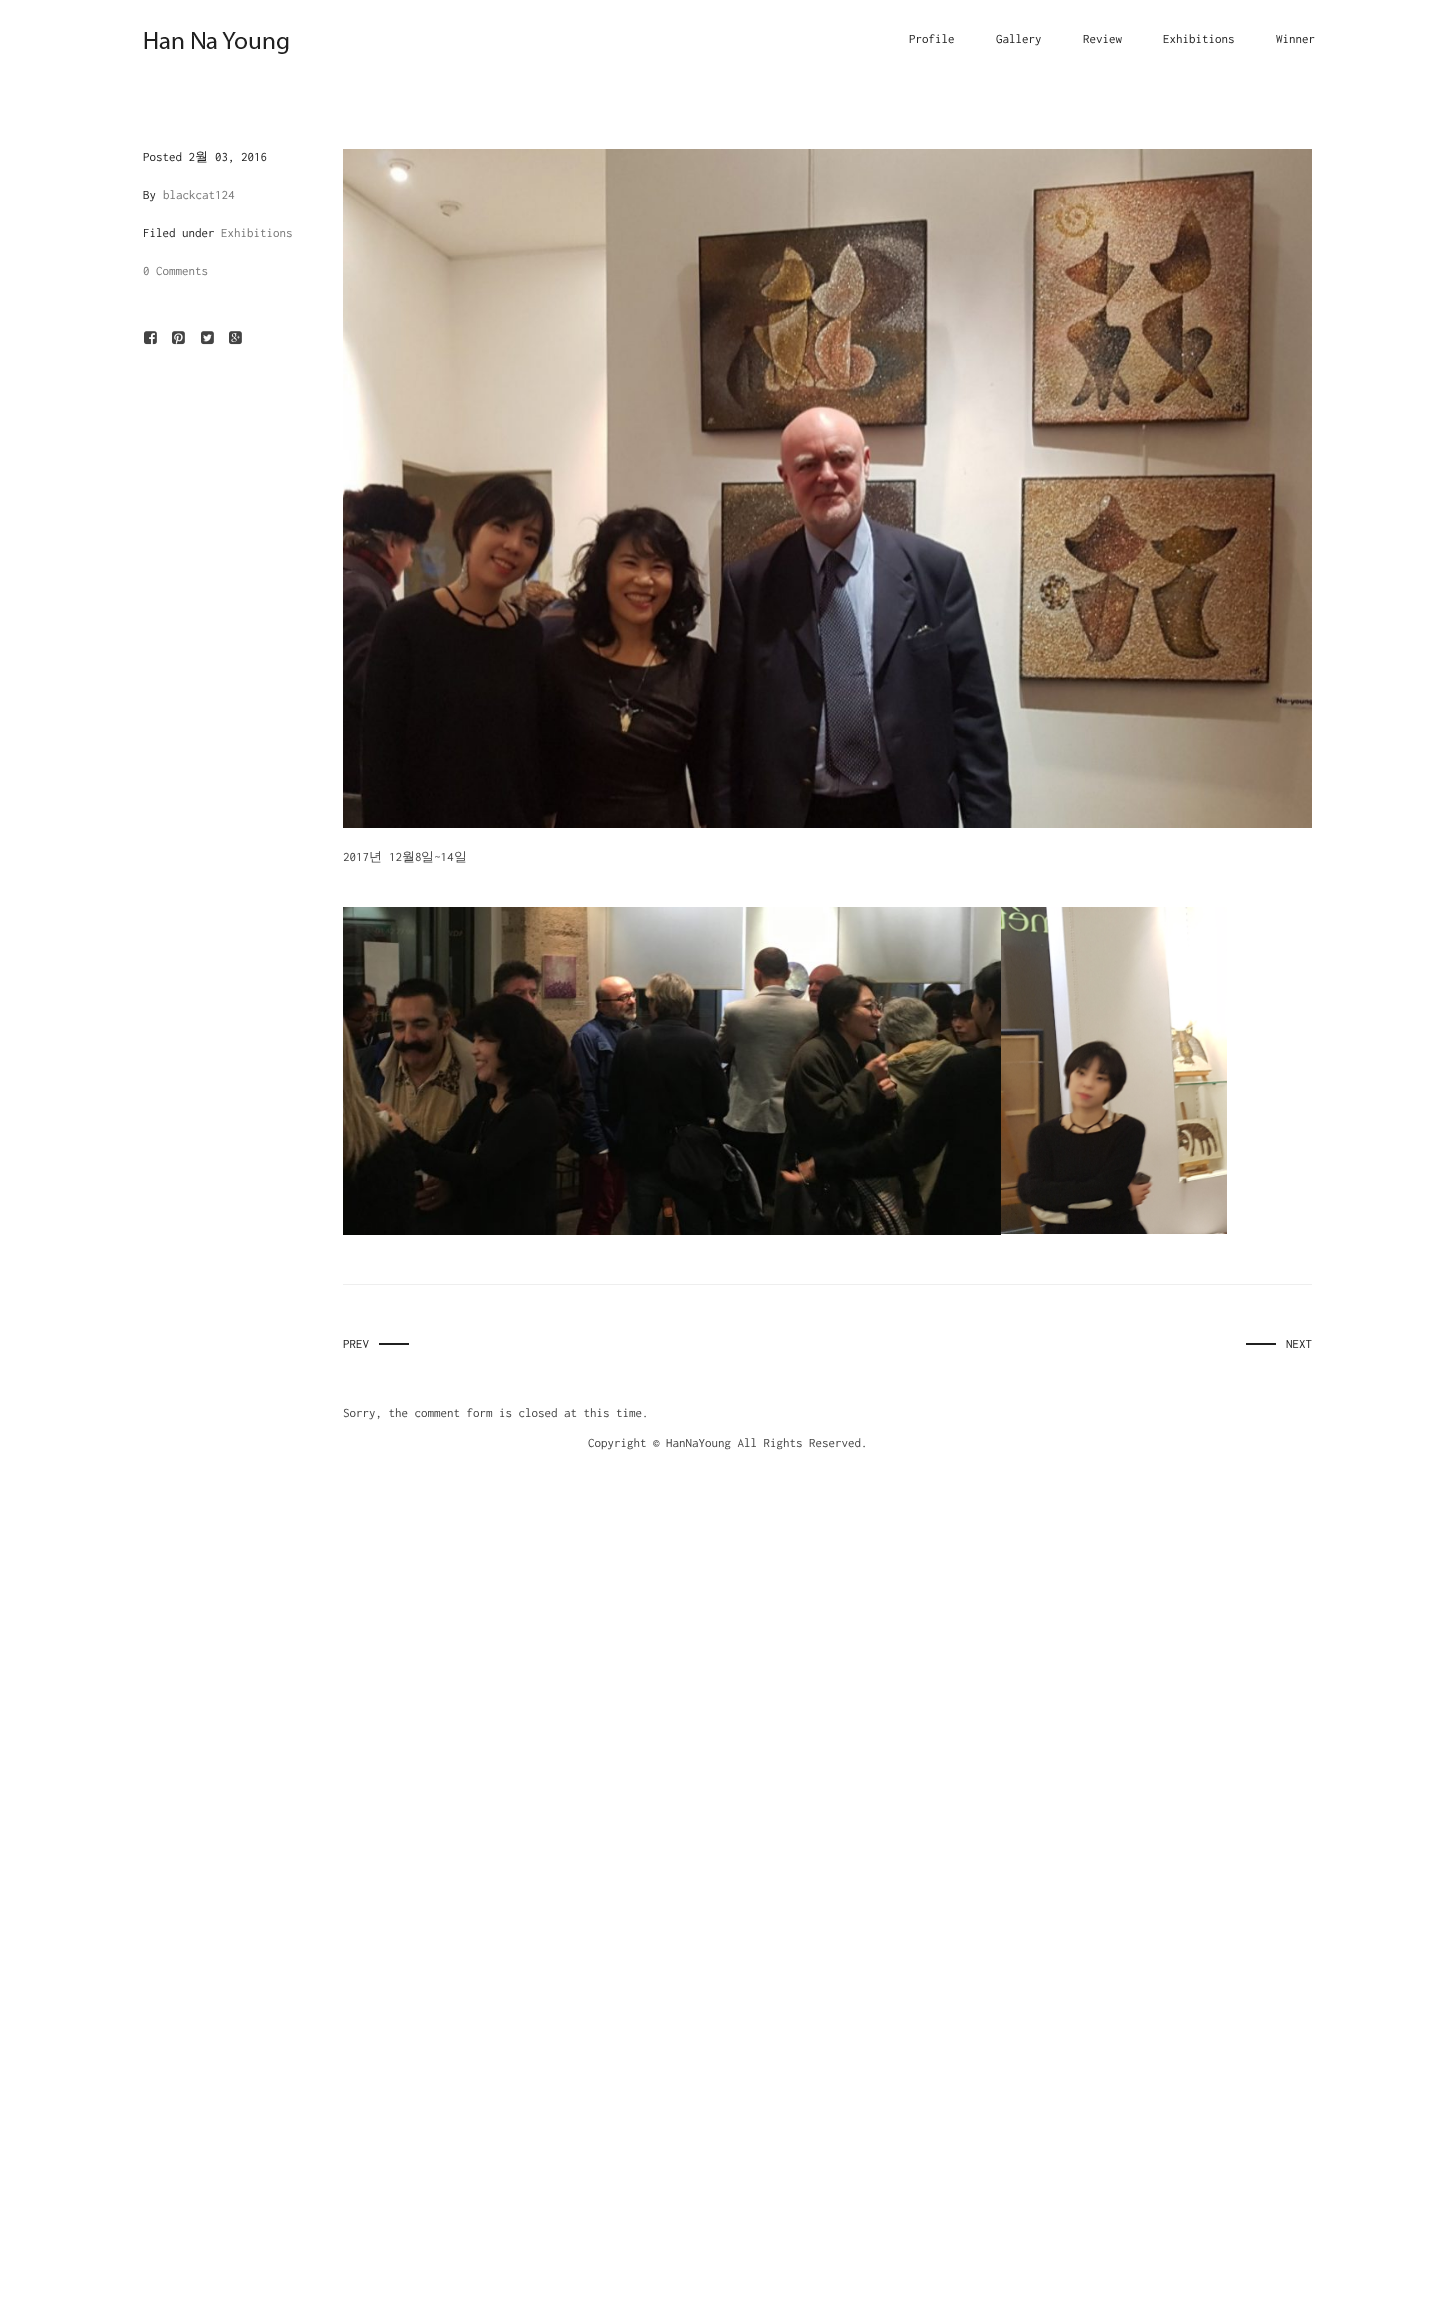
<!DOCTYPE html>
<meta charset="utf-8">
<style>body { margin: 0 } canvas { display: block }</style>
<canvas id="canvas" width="1456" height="2319"></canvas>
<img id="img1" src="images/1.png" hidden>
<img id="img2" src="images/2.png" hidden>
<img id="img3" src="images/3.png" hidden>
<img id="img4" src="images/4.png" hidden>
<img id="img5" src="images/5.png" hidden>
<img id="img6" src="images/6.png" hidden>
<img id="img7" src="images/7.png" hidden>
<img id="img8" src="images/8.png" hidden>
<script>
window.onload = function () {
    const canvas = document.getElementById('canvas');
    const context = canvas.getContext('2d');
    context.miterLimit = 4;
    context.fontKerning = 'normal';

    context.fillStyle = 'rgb(255, 255, 255)';
    context.fillRect(0, 0, 1456, 2319);
    context.drawImage(document.getElementById('img1'), 144, 32, 145, 22);
    context.drawImage(document.getElementById('img2'), 144, 331, 13, 14);
    context.drawImage(document.getElementById('img3'), 172, 331, 13, 14);
    context.drawImage(document.getElementById('img4'), 201, 331, 13, 14);
    context.drawImage(document.getElementById('img5'), 229, 331, 13, 14);
    context.drawImage(document.getElementById('img6'), 343, 149, 969, 679);
    context.drawImage(document.getElementById('img7'), 343, 907, 658, 328);
    context.drawImage(document.getElementById('img8'), 1001, 907, 226, 327);
    context.fillStyle = 'rgb(238, 238, 238)';
    context.fillRect(343, 1284, 969, 1);
    context.fillStyle = 'rgb(32, 32, 32)';
    context.fillRect(379, 1343, 30, 2);
    context.fillRect(1246, 1343, 30, 2);
    context.font = '13px Inconsolata';
    context.fillText('Profile', 909, 43);
    context.fillText('Gallery', 996, 43);
    context.fillText('Review', 1083, 43);
    context.fillText('Exhibitions', 1163, 43);
    context.fillText('Winner', 1276, 43);
    context.fillText('Posted 2', 143, 161);
    context.font = '500 13px WenQuanYi Zen Hei';
    context.fillText('월', 195, 161);
    context.font = '13px Inconsolata';
    context.fillText('03, 2016', 215, 161);
    context.fillText('By', 143, 199);
    context.fillStyle = 'rgb(119, 119, 119)';
    context.fillText('blackcat124', 163, 199);
    context.fillStyle = 'rgb(32, 32, 32)';
    context.fillText('Filed under', 143, 237);
    context.fillStyle = 'rgb(119, 119, 119)';
    context.fillText('Exhibitions', 221, 237);
    context.fillText('0 Comments', 143, 275);
    context.fillStyle = 'rgb(67, 67, 67)';
    context.fillText('2017', 343, 861);
    context.font = '500 13px WenQuanYi Zen Hei';
    context.fillText('년', 369, 861);
    context.font = '13px Inconsolata';
    context.fillText('12', 389, 861);
    context.font = '500 13px WenQuanYi Zen Hei';
    context.fillText('월', 402, 861);
    context.font = '13px Inconsolata';
    context.fillText('8', 415, 861);
    context.font = '500 13px WenQuanYi Zen Hei';
    context.fillText('일', 421, 861);
    context.font = '13px Inconsolata';
    context.fillText('~14', 434, 861);
    context.font = '500 13px WenQuanYi Zen Hei';
    context.fillText('일', 454, 861);
    context.font = '13px Inconsolata';
    context.fillStyle = 'rgb(32, 32, 32)';
    context.fillText('PREV', 343, 1348);
    context.fillText('NEXT', 1286, 1348);
    context.fillStyle = 'rgb(67, 67, 67)';
    context.fillText('Sorry, the comment form is closed at this time.', 343, 1417);
    context.fillText('Copyright © HanNaYoung All Rights Reserved.', 588, 1447);
};
</script>
